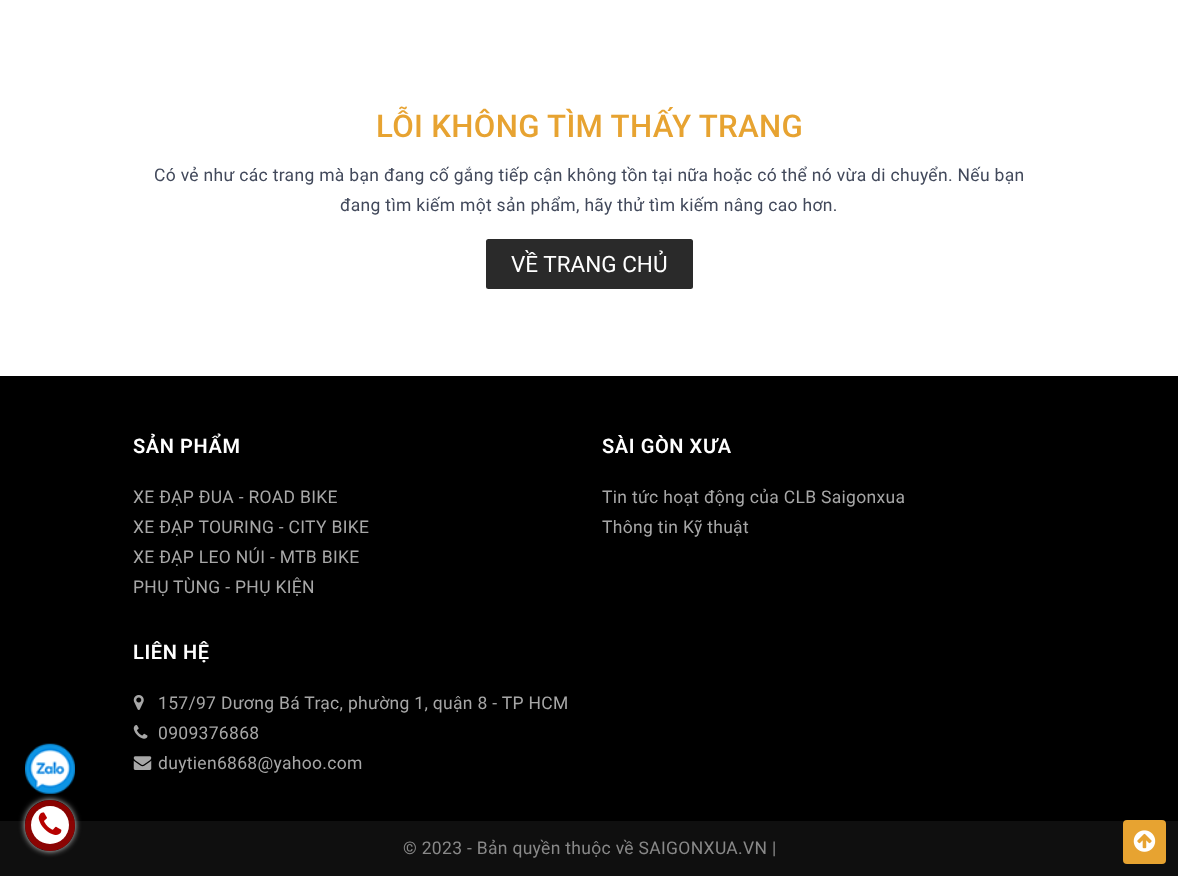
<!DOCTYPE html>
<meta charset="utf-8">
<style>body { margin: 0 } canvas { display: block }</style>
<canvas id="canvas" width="1178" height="876"></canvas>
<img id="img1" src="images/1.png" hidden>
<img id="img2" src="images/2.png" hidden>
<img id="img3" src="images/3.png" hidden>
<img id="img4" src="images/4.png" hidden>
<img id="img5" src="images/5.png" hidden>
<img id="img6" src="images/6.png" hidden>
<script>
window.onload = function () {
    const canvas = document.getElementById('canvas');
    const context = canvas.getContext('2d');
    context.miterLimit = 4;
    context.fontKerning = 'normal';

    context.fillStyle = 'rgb(255, 255, 255)';
    context.fillRect(0, 0, 1178, 876);
    context.fillStyle = 'rgb(42, 42, 42)';
    context.beginPath();
    context.roundRect(486, 239, 207, 50, 2.5);
    context.fill();
    context.fillStyle = 'rgb(0, 0, 0)';
    context.fillRect(0, 376, 1178, 445);
    context.fillStyle = 'rgb(15, 15, 15)';
    context.fillRect(0, 821, 1178, 55);
    context.save();
    context.beginPath();
    context.moveTo(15, 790);
    context.lineTo(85, 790);
    context.lineTo(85, 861);
    context.lineTo(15, 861);
    context.closePath();
    context.moveTo(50, 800);
    context.bezierCurveTo(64, 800, 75, 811, 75, 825);
    context.lineTo(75, 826);
    context.bezierCurveTo(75, 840, 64, 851, 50, 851);
    context.bezierCurveTo(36, 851, 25, 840, 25, 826);
    context.lineTo(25, 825);
    context.bezierCurveTo(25, 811, 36, 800, 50, 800);
    context.closePath();
    context.clip('evenodd');
    context.fillStyle = 'rgb(221, 221, 221)';
    context.filter = 'blur(3px)';
    context.beginPath();
    context.roundRect(25, 800, 50, 51, 25);
    context.fill();
    context.filter = 'none';
    context.restore();
    context.drawImage(document.getElementById('img1'), 25, 743, 50, 51);
    context.fillStyle = 'rgba(183, 1, 0, 0.74)';
    context.beginPath();
    context.roundRect(25, 800, 50, 51, 25);
    context.fill();
    context.fillStyle = 'rgb(255, 255, 255)';
    context.beginPath();
    context.arc(50, 825, 19, 0, 2 * Math.PI);
    context.fill();
    context.drawImage(document.getElementById('img2'), 38, 812, 24, 23);
    context.drawImage(document.getElementById('img3'), 133, 695, 11, 15);
    context.drawImage(document.getElementById('img4'), 133, 725, 15, 14);
    context.drawImage(document.getElementById('img5'), 133, 756, 19, 14);
    context.fillStyle = 'rgb(231, 163, 49)';
    context.beginPath();
    context.roundRect(1123, 820, 43, 44, 4);
    context.fill();
    context.drawImage(document.getElementById('img6'), 1133, 830, 23, 22);
    context.letterSpacing = '0.31px';
    context.font = '500 31.25px Roboto';
    context.fillText('LỖI KHÔNG TÌM THẤY TRANG', 376, 137);
    context.font = '17.5px Roboto';
    context.fillStyle = 'rgb(66, 73, 91)';
    context.fillText('Có vẻ như các trang mà bạn đang cố gắng tiếp cận không tồn tại nữa hoặc có thể nó vừa di chuyển. Nếu bạn', 154, 181);
    context.fillText('đang tìm kiếm một sản phẩm, hãy thử tìm kiếm nâng cao hơn.', 340, 211);
    context.letterSpacing = '0px';
    context.font = '22.5px Roboto';
    context.fillStyle = 'rgb(255, 255, 255)';
    context.fillText('VỀ TRANG CHỦ', 511, 272);
    context.letterSpacing = '0.6px';
    context.font = '600 20px Roboto';
    context.fillText('SẢN PHẨM', 133, 453);
    context.letterSpacing = '0.31px';
    context.font = '17.5px Roboto';
    context.fillStyle = 'rgb(167, 167, 167)';
    context.fillText('XE ĐẠP ĐUA - ROAD BIKE', 133, 503);
    context.fillText('XE ĐẠP TOURING - CITY BIKE', 133, 533);
    context.fillText('XE ĐẠP LEO NÚI - MTB BIKE', 133, 563);
    context.fillText('PHỤ TÙNG - PHỤ KIỆN', 133, 593);
    context.letterSpacing = '0.6px';
    context.font = '600 20px Roboto';
    context.fillStyle = 'rgb(255, 255, 255)';
    context.fillText('SÀI GÒN XƯA', 602, 453);
    context.letterSpacing = '0.31px';
    context.font = '17.5px Roboto';
    context.fillStyle = 'rgb(167, 167, 167)';
    context.fillText('Tin tức hoạt động của CLB Saigonxua', 602, 503);
    context.fillText('Thông tin Kỹ thuật', 602, 533);
    context.letterSpacing = '0.6px';
    context.font = '600 20px Roboto';
    context.fillStyle = 'rgb(255, 255, 255)';
    context.fillText('LIÊN HỆ', 133, 659);
    context.letterSpacing = '0.31px';
    context.font = '17.5px Roboto';
    context.fillStyle = 'rgb(167, 167, 167)';
    context.fillText('157/97 Dương Bá Trạc, phường 1, quận 8 - TP HCM', 158, 709);
    context.fillText('0909376868', 158, 739);
    context.fillText('duytien6868@yahoo.com', 158, 769);
    context.fillStyle = 'rgb(136, 136, 136)';
    context.fillText('© 2023 - Bản quyền thuộc về SAIGONXUA.VN |', 403, 854);
};
</script>
